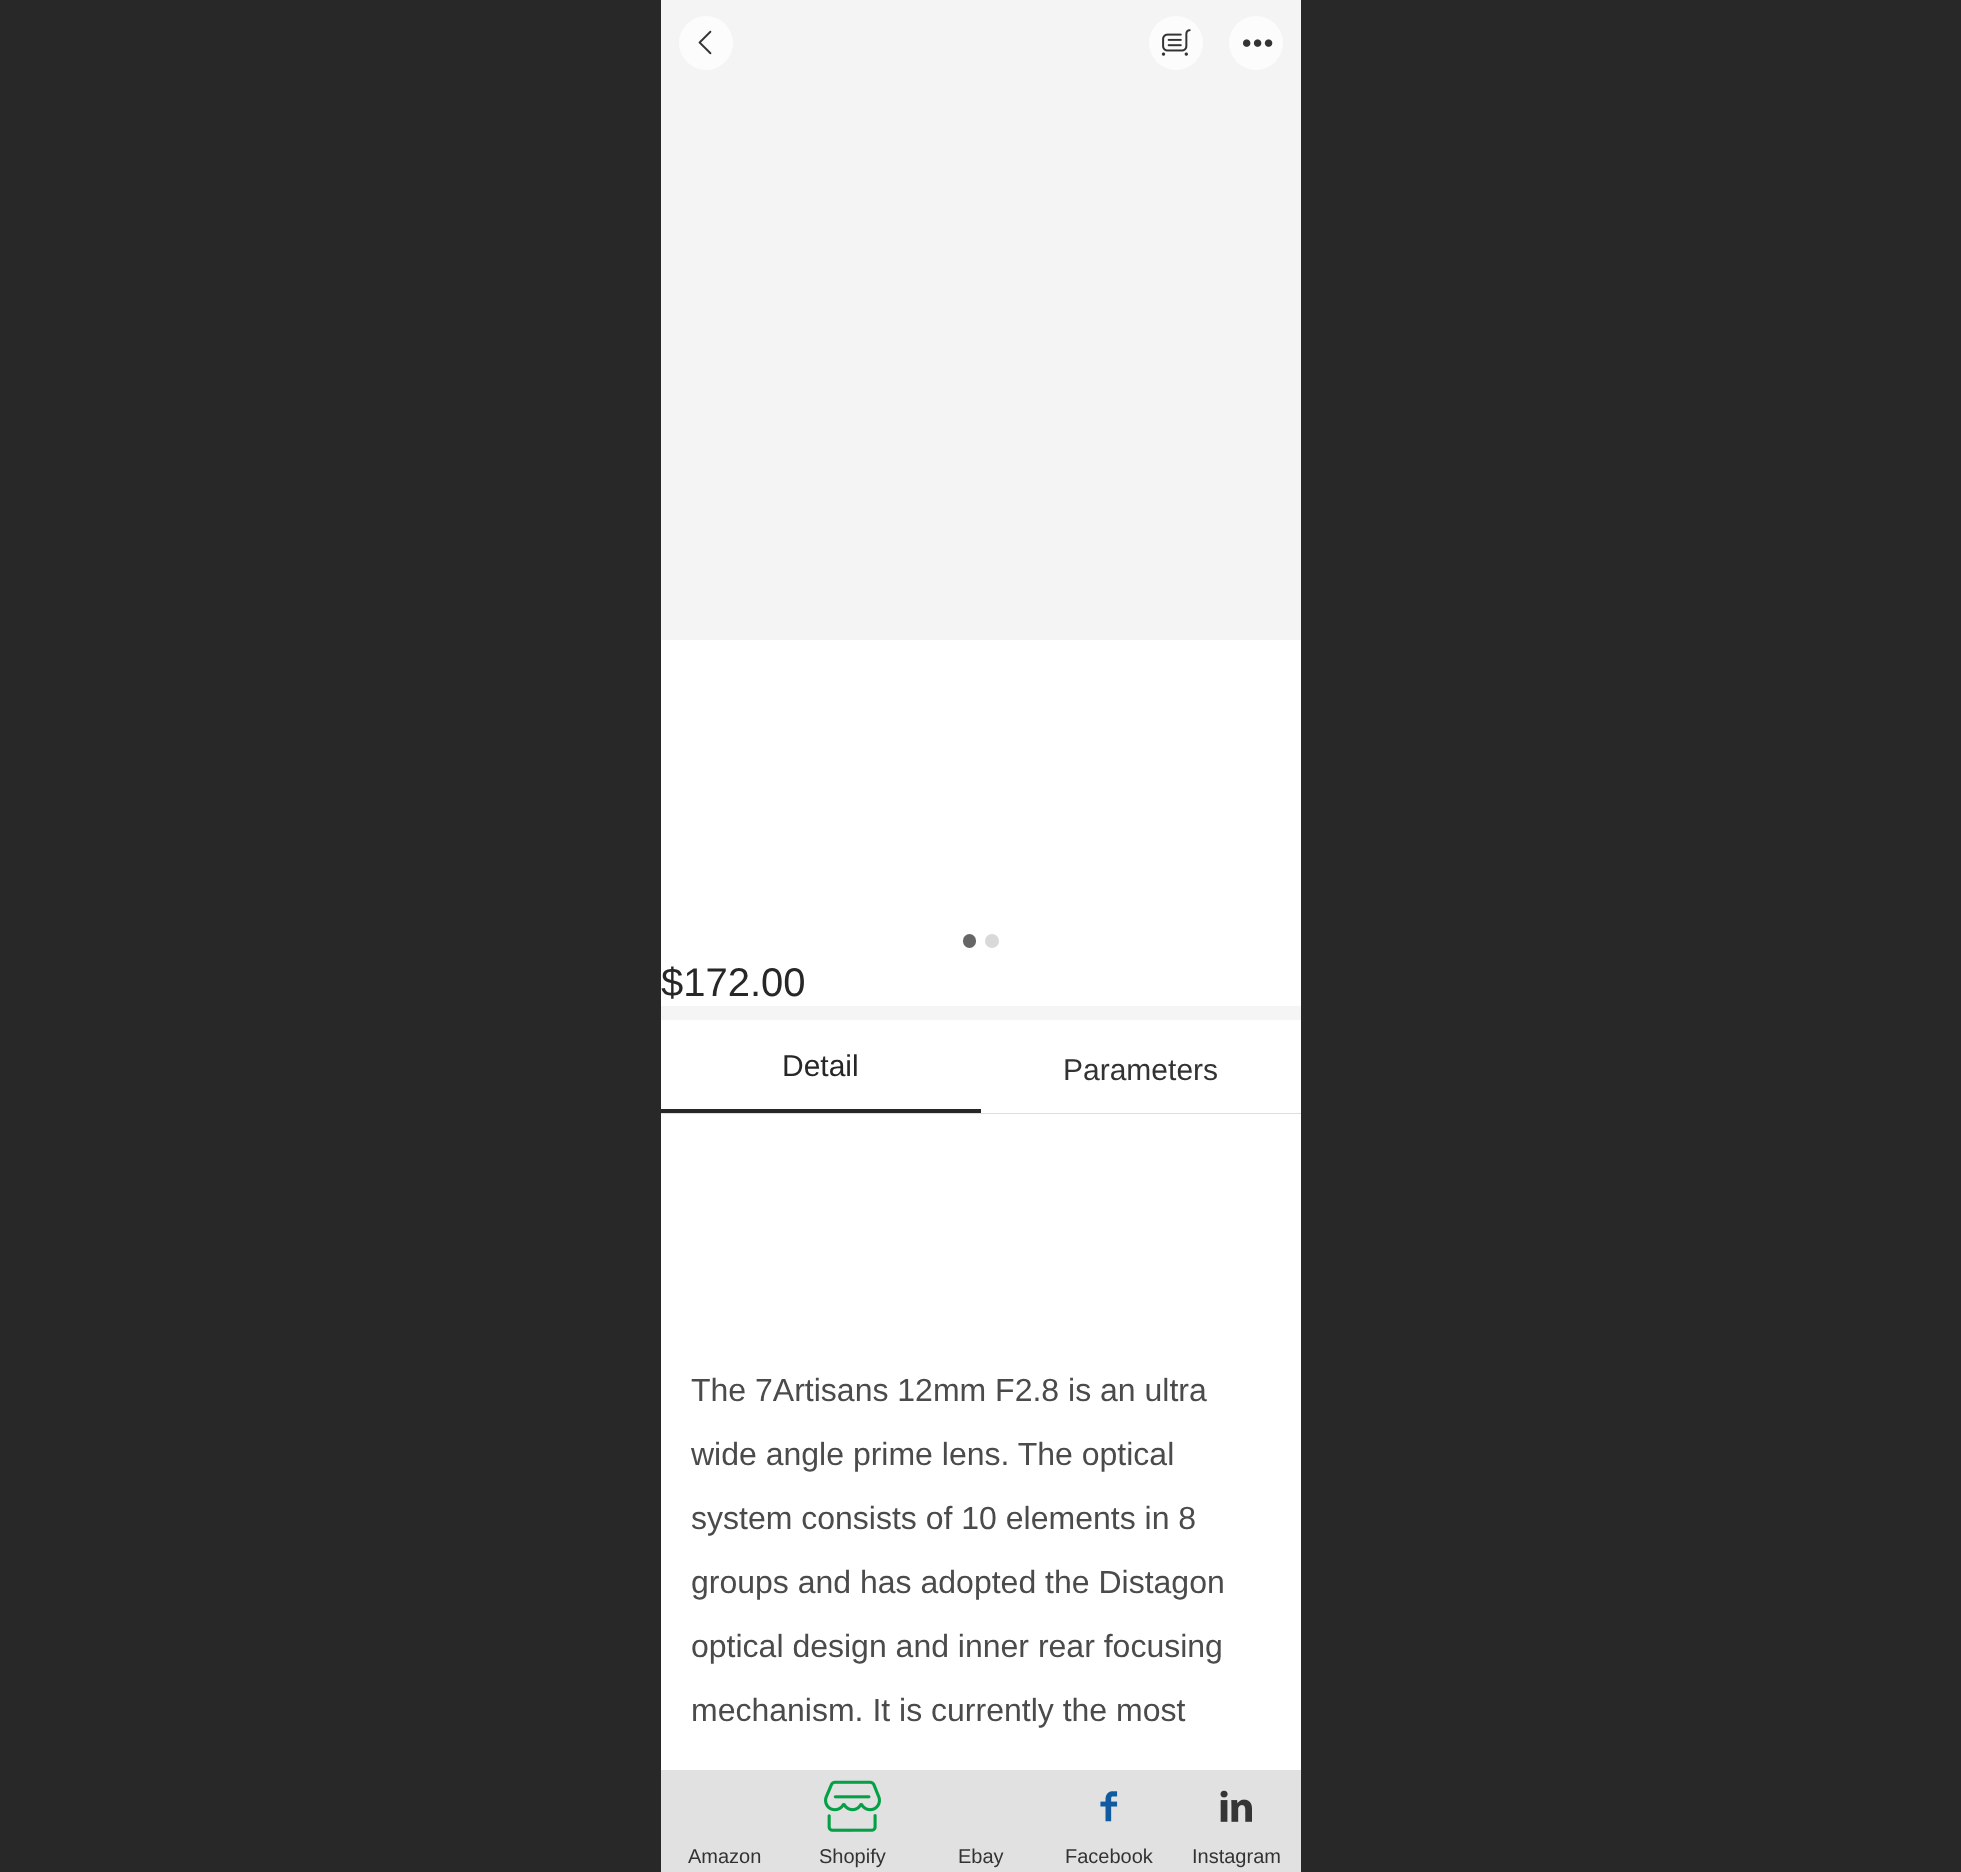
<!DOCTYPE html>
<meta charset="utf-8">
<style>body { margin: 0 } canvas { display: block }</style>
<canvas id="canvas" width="1961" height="1872"></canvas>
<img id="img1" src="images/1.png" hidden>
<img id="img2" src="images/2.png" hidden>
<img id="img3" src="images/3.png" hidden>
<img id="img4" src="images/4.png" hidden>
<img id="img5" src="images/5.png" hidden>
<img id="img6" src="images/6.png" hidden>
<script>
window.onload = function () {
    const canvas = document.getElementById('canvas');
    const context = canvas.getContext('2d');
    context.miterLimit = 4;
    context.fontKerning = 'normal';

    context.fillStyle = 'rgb(255, 255, 255)';
    context.fillRect(0, 0, 1961, 1872);
    context.fillStyle = 'rgb(40, 40, 40)';
    context.fillRect(0, 0, 661, 1872);
    context.fillStyle = 'rgb(244, 244, 244)';
    context.fillRect(661, 0, 640, 640);
    context.fillStyle = 'rgb(252, 252, 252)';
    context.beginPath();
    context.arc(706, 43, 27, 0, 2 * Math.PI);
    context.fill();
    context.drawImage(document.getElementById('img1'), 698, 30, 14, 25);
    context.beginPath();
    context.arc(1176, 43, 27, 0, 2 * Math.PI);
    context.fill();
    context.drawImage(document.getElementById('img2'), 1161, 29, 30, 27);
    context.beginPath();
    context.arc(1256, 43, 27, 0, 2 * Math.PI);
    context.fill();
    context.drawImage(document.getElementById('img3'), 1243, 39, 30, 8);
    context.fillStyle = 'rgb(102, 102, 102)';
    context.beginPath();
    context.roundRect(963, 934, 13, 14, 6.5);
    context.fill();
    context.fillStyle = 'rgb(217, 217, 217)';
    context.beginPath();
    context.arc(992, 941, 7, 0, 2 * Math.PI);
    context.fill();
    context.fillStyle = 'rgb(245, 245, 245)';
    context.fillRect(661, 1006, 640, 14);
    context.fillStyle = 'rgb(221, 221, 221)';
    context.fillRect(661, 1113, 640, 1);
    context.fillStyle = 'rgb(39, 39, 39)';
    context.fillRect(661, 1109, 320, 4);
    context.fillStyle = 'rgba(222, 222, 222, 0.9)';
    context.fillRect(661, 1770, 640, 102);
    context.drawImage(document.getElementById('img4'), 824, 1780, 57, 52);
    context.drawImage(document.getElementById('img5'), 1100, 1791, 18, 31);
    context.drawImage(document.getElementById('img6'), 1220, 1790, 32, 32);
    context.fillStyle = 'rgb(40, 40, 40)';
    context.fillRect(1301, 0, 660, 1872);
    context.font = '40px Liberation Sans';
    context.fillStyle = 'rgb(39, 39, 39)';
    context.fillText('$172.00', 661, 996);
    context.font = '30px Liberation Sans';
    context.fillText('Detail', 782, 1076);
    context.fillStyle = 'rgb(51, 51, 51)';
    context.fillText('Parameters', 1063, 1080);
    context.font = '32px Liberation Sans';
    context.fillStyle = 'rgb(75, 75, 75)';
    context.fillText('The 7Artisans 12mm F2.8 is an ultra', 691, 1401);
    context.fillText('wide angle prime lens. The optical', 691, 1465);
    context.fillText('system consists of 10 elements in 8', 691, 1529);
    context.fillText('groups and has adopted the Distagon', 691, 1593);
    context.fillText('optical design and inner rear focusing', 691, 1657);
    context.fillText('mechanism. It is currently the most', 691, 1721);
    context.font = '20px Liberation Sans';
    context.fillStyle = 'rgb(51, 51, 51)';
    context.fillText('Amazon', 688, 1863);
    context.fillText('Shopify', 819, 1863);
    context.fillText('Ebay', 958, 1863);
    context.fillText('Facebook', 1065, 1863);
    context.fillText('Instagram', 1192, 1863);
};
</script>
